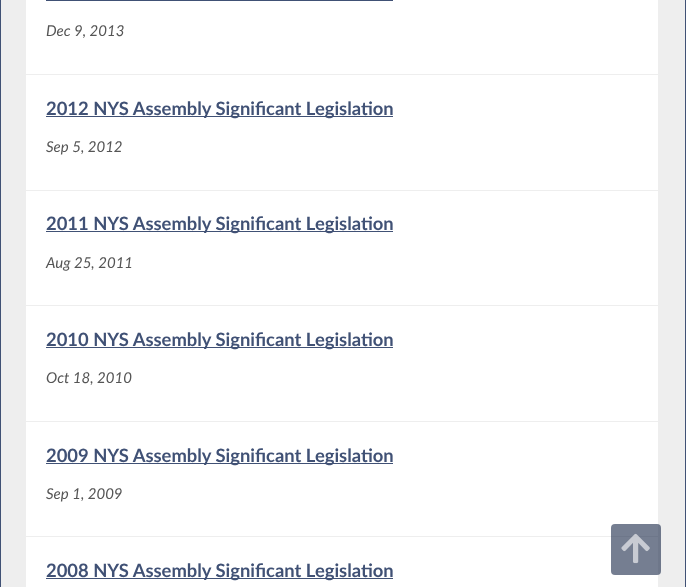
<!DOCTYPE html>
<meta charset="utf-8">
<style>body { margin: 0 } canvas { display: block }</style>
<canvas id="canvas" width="686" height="587"></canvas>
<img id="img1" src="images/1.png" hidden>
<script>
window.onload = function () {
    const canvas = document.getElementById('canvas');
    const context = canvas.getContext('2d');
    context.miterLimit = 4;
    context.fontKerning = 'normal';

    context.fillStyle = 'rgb(238, 238, 238)';
    context.fillRect(0, 0, 686, 587);
    context.fillStyle = 'rgb(64, 81, 117)';
    context.fillRect(685, 0, 1, 587);
    context.fillRect(0, 0, 1, 587);
    context.fillStyle = 'rgb(255, 255, 255)';
    context.fillRect(26, 0, 632, 74);
    context.fillStyle = 'rgb(64, 81, 117)';
    context.fillRect(46, 0, 347, 1);
    context.fillStyle = 'rgb(255, 255, 255)';
    context.fillRect(26, 75, 632, 115);
    context.fillStyle = 'rgb(64, 81, 117)';
    context.fillRect(46, 116, 347, 1);
    context.fillStyle = 'rgb(255, 255, 255)';
    context.fillRect(26, 191, 632, 114);
    context.fillStyle = 'rgb(64, 81, 117)';
    context.fillRect(46, 231, 347, 1);
    context.fillStyle = 'rgb(255, 255, 255)';
    context.fillRect(26, 306, 632, 115);
    context.fillStyle = 'rgb(64, 81, 117)';
    context.fillRect(46, 347, 347, 1);
    context.fillStyle = 'rgb(255, 255, 255)';
    context.fillRect(26, 422, 632, 114);
    context.fillStyle = 'rgb(64, 81, 117)';
    context.fillRect(46, 463, 347, 1);
    context.fillStyle = 'rgb(255, 255, 255)';
    context.fillRect(26, 537, 632, 50);
    context.fillStyle = 'rgb(64, 81, 117)';
    context.fillRect(46, 578, 347, 1);
    context.fillStyle = 'rgba(25, 40, 71, 0.6)';
    context.beginPath();
    context.roundRect(611, 524, 50, 51, 4);
    context.fill();
    context.drawImage(document.getElementById('img1'), 621, 533, 29, 31);
    context.font = 'italic 15px Lato';
    context.fillStyle = 'rgb(85, 85, 85)';
    context.fillText('Dec 9, 2013', 46, 36);
    context.font = 'bold 18.4px Lato';
    context.fillStyle = 'rgb(64, 81, 117)';
    context.fillText('2012 NYS Assembly Significant Legislation', 46, 115);
    context.font = 'italic 15px Lato';
    context.fillStyle = 'rgb(85, 85, 85)';
    context.fillText('Sep 5, 2012', 46, 152);
    context.font = 'bold 18.4px Lato';
    context.fillStyle = 'rgb(64, 81, 117)';
    context.fillText('2011 NYS Assembly Significant Legislation', 46, 230);
    context.font = 'italic 15px Lato';
    context.fillStyle = 'rgb(85, 85, 85)';
    context.fillText('Aug 25, 2011', 46, 268);
    context.font = 'bold 18.4px Lato';
    context.fillStyle = 'rgb(64, 81, 117)';
    context.fillText('2010 NYS Assembly Significant Legislation', 46, 346);
    context.font = 'italic 15px Lato';
    context.fillStyle = 'rgb(85, 85, 85)';
    context.fillText('Oct 18, 2010', 46, 383);
    context.font = 'bold 18.4px Lato';
    context.fillStyle = 'rgb(64, 81, 117)';
    context.fillText('2009 NYS Assembly Significant Legislation', 46, 462);
    context.font = 'italic 15px Lato';
    context.fillStyle = 'rgb(85, 85, 85)';
    context.fillText('Sep 1, 2009', 46, 499);
    context.font = 'bold 18.4px Lato';
    context.fillStyle = 'rgb(64, 81, 117)';
    context.fillText('2008 NYS Assembly Significant Legislation', 46, 577);
};
</script>
